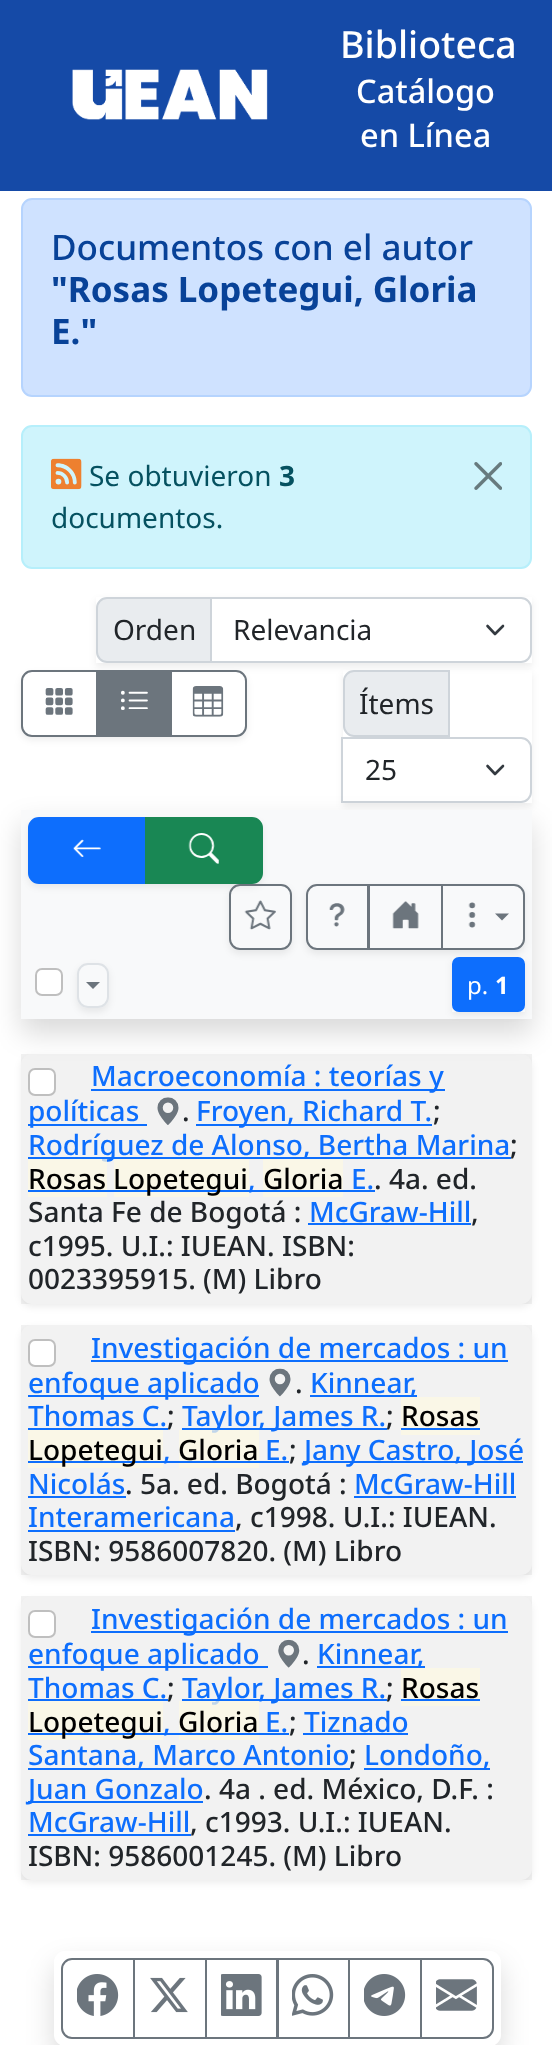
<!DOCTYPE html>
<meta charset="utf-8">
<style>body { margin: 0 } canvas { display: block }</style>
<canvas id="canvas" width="552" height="2045"></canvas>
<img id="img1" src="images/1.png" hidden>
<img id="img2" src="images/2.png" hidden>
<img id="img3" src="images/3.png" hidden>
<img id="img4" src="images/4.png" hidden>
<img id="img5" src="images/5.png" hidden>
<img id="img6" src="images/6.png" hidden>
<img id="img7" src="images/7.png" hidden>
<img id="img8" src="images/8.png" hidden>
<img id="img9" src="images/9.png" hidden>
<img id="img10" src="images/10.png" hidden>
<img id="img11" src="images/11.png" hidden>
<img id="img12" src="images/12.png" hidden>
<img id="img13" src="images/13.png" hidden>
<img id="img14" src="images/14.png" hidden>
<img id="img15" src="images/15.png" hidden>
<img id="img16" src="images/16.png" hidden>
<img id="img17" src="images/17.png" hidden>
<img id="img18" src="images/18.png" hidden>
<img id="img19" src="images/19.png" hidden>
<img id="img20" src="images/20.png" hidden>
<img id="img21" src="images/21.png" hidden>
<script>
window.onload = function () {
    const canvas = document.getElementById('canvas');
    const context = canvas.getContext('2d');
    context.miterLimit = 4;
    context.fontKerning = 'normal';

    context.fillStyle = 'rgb(21, 74, 167)';
    context.fillRect(0, 0, 552, 2045);
    context.drawImage(document.getElementById('img1'), 72, 69, 196, 51);
    context.fillStyle = 'rgb(255, 255, 255)';
    context.fillRect(0, 191, 552, 1854);
    context.fillStyle = 'rgb(207, 226, 255)';
    context.beginPath();
    context.roundRect(22, 199, 509, 197, 10);
    context.fill();
    context.strokeStyle = 'rgb(182, 212, 254)';
    context.lineWidth = 2;
    context.stroke();
    context.fillStyle = 'rgb(207, 244, 252)';
    context.beginPath();
    context.roundRect(22, 426, 509, 142, 10);
    context.fill();
    context.strokeStyle = 'rgb(182, 239, 251)';
    context.stroke();
    context.drawImage(document.getElementById('img2'), 51, 458, 31, 32);
    context.drawImage(document.getElementById('img3'), 474, 462, 28, 28);
    context.save();
    context.beginPath();
    context.moveTo(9, 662);
    context.lineTo(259, 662);
    context.lineTo(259, 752);
    context.lineTo(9, 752);
    context.closePath();
    context.moveTo(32, 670);
    context.lineTo(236, 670);
    context.bezierCurveTo(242, 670, 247, 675, 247, 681);
    context.lineTo(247, 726);
    context.bezierCurveTo(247, 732, 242, 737, 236, 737);
    context.lineTo(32, 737);
    context.bezierCurveTo(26, 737, 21, 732, 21, 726);
    context.lineTo(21, 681);
    context.bezierCurveTo(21, 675, 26, 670, 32, 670);
    context.closePath();
    context.clip('evenodd');
    context.fillStyle = 'rgba(0, 0, 0, 0.07)';
    context.filter = 'blur(3.5px)';
    context.beginPath();
    context.roundRect(21, 674, 226, 66, 11);
    context.fill();
    context.filter = 'none';
    context.restore();
    context.beginPath();
    context.roundRect(22, 671, 75, 65, [10, 0, 0, 10]);
    context.strokeStyle = 'rgb(108, 117, 125)';
    context.stroke();
    context.beginPath();
    context.roundRect(171, 671, 75, 65, [0, 10, 10, 0]);
    context.stroke();
    context.save();
    context.beginPath();
    context.moveTo(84, 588);
    context.lineTo(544, 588);
    context.lineTo(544, 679);
    context.lineTo(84, 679);
    context.closePath();
    context.moveTo(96, 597);
    context.lineTo(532, 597);
    context.lineTo(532, 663);
    context.lineTo(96, 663);
    context.closePath();
    context.clip('evenodd');
    context.fillStyle = 'rgba(0, 0, 0, 0.07)';
    context.filter = 'blur(3.5px)';
    context.beginPath();
    context.rect(96, 600, 436, 67);
    context.fill();
    context.filter = 'none';
    context.restore();
    context.fillStyle = 'rgb(233, 236, 239)';
    context.beginPath();
    context.roundRect(97, 598, 114, 64, [10, 0, 0, 10]);
    context.fill();
    context.strokeStyle = 'rgb(206, 212, 218)';
    context.stroke();
    context.fillStyle = 'rgb(255, 255, 255)';
    context.beginPath();
    context.roundRect(210, 597, 322, 66, [0, 11, 11, 0]);
    context.fill();
    context.beginPath();
    context.moveTo(487.5, 626);
    context.lineTo(495, 634);
    context.lineTo(503, 626);
    context.strokeStyle = 'rgb(52, 58, 64)';
    context.lineWidth = 2.6;
    context.lineCap = 'round';
    context.lineJoin = 'round';
    context.stroke();
    context.beginPath();
    context.roundRect(211, 598, 320, 64, [0, 10, 10, 0]);
    context.strokeStyle = 'rgb(206, 212, 218)';
    context.lineWidth = 2;
    context.lineJoin = 'miter';
    context.stroke();
    context.drawImage(document.getElementById('img4'), 45, 688, 28, 27);
    context.fillStyle = 'rgb(108, 117, 125)';
    context.fillRect(98, 670, 72, 67);
    context.drawImage(document.getElementById('img5'), 121, 690, 27, 20);
    context.drawImage(document.getElementById('img6'), 192, 686, 32, 31);
    context.save();
    context.beginPath();
    context.moveTo(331, 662);
    context.lineTo(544, 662);
    context.lineTo(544, 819);
    context.lineTo(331, 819);
    context.closePath();
    context.moveTo(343, 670);
    context.lineTo(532, 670);
    context.lineTo(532, 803);
    context.lineTo(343, 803);
    context.closePath();
    context.clip('evenodd');
    context.fillStyle = 'rgba(0, 0, 0, 0.07)';
    context.filter = 'blur(3.5px)';
    context.beginPath();
    context.rect(343, 674, 189, 133);
    context.fill();
    context.filter = 'none';
    context.restore();
    context.fillStyle = 'rgb(233, 236, 239)';
    context.beginPath();
    context.roundRect(344, 671, 105, 65, [10, 0, 0, 10]);
    context.fill();
    context.stroke();
    context.fillStyle = 'rgb(255, 255, 255)';
    context.beginPath();
    context.roundRect(341, 737, 191, 66, [0, 11, 11, 0]);
    context.fill();
    context.beginPath();
    context.moveTo(487.5, 766);
    context.lineTo(495, 774);
    context.lineTo(503, 766);
    context.strokeStyle = 'rgb(52, 58, 64)';
    context.lineWidth = 2.6;
    context.lineJoin = 'round';
    context.stroke();
    context.beginPath();
    context.roundRect(342, 738, 189, 64, [0, 10, 10, 0]);
    context.strokeStyle = 'rgb(206, 212, 218)';
    context.lineWidth = 2;
    context.lineJoin = 'miter';
    context.stroke();
    context.save();
    context.beginPath();
    context.moveTo(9, 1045);
    context.lineTo(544, 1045);
    context.lineTo(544, 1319);
    context.lineTo(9, 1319);
    context.closePath();
    context.moveTo(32, 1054);
    context.lineTo(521, 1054);
    context.bezierCurveTo(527, 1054, 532, 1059, 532, 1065);
    context.lineTo(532, 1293);
    context.bezierCurveTo(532, 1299, 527, 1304, 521, 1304);
    context.lineTo(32, 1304);
    context.bezierCurveTo(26, 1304, 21, 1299, 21, 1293);
    context.lineTo(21, 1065);
    context.bezierCurveTo(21, 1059, 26, 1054, 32, 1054);
    context.closePath();
    context.clip('evenodd');
    context.fillStyle = 'rgba(0, 0, 0, 0.07)';
    context.filter = 'blur(3.5px)';
    context.beginPath();
    context.roundRect(21, 1057, 511, 250, 11);
    context.fill();
    context.filter = 'none';
    context.restore();
    context.fillStyle = 'rgba(0, 0, 0, 0.05)';
    context.fillRect(21, 1054, 511, 250);
    context.fillStyle = 'rgb(255, 255, 255)';
    context.beginPath();
    context.roundRect(28, 1068, 28, 28, 7);
    context.fill();
    context.beginPath();
    context.roundRect(29, 1069, 26, 26, 6);
    context.strokeStyle = 'rgba(0, 0, 0, 0.25)';
    context.stroke();
    context.fillStyle = 'rgba(0, 0, 0, 0.15)';
    context.filter = 'blur(14px)';
    context.beginPath();
    context.rect(21, 824, 511, 209);
    context.fill();
    context.filter = 'none';
    context.fillStyle = 'rgb(248, 249, 250)';
    context.fillRect(21, 810, 511, 209);
    context.fillStyle = 'rgba(0, 0, 0, 0.07)';
    context.filter = 'blur(3.5px)';
    context.beginPath();
    context.roundRect(28, 821, 235, 66, 11);
    context.fill();
    context.filter = 'none';
    context.fillStyle = 'rgb(13, 110, 253)';
    context.beginPath();
    context.roundRect(29, 818, 117, 65, [10, 0, 0, 10]);
    context.fill();
    context.strokeStyle = 'rgb(13, 110, 253)';
    context.stroke();
    context.drawImage(document.getElementById('img7'), 73, 839, 28, 18);
    context.fillStyle = 'rgb(25, 135, 84)';
    context.beginPath();
    context.roundRect(146, 818, 116, 65, [0, 10, 10, 0]);
    context.fill();
    context.strokeStyle = 'rgb(25, 135, 84)';
    context.stroke();
    context.drawImage(document.getElementById('img8'), 188, 833, 31, 31);
    context.save();
    context.beginPath();
    context.moveTo(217, 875);
    context.lineTo(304, 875);
    context.lineTo(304, 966);
    context.lineTo(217, 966);
    context.closePath();
    context.moveTo(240, 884);
    context.lineTo(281, 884);
    context.bezierCurveTo(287, 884, 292, 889, 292, 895);
    context.lineTo(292, 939);
    context.bezierCurveTo(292, 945, 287, 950, 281, 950);
    context.lineTo(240, 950);
    context.bezierCurveTo(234, 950, 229, 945, 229, 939);
    context.lineTo(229, 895);
    context.bezierCurveTo(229, 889, 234, 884, 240, 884);
    context.closePath();
    context.clip('evenodd');
    context.fillStyle = 'rgba(0, 0, 0, 0.07)';
    context.filter = 'blur(3.5px)';
    context.beginPath();
    context.roundRect(229, 887, 63, 67, 11);
    context.fill();
    context.filter = 'none';
    context.restore();
    context.beginPath();
    context.roundRect(230, 885, 61, 64, 10);
    context.strokeStyle = 'rgb(108, 117, 125)';
    context.stroke();
    context.drawImage(document.getElementById('img9'), 244, 900, 32, 30);
    context.save();
    context.beginPath();
    context.moveTo(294, 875);
    context.lineTo(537, 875);
    context.lineTo(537, 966);
    context.lineTo(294, 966);
    context.closePath();
    context.moveTo(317, 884);
    context.lineTo(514, 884);
    context.bezierCurveTo(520, 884, 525, 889, 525, 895);
    context.lineTo(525, 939);
    context.bezierCurveTo(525, 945, 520, 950, 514, 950);
    context.lineTo(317, 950);
    context.bezierCurveTo(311, 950, 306, 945, 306, 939);
    context.lineTo(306, 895);
    context.bezierCurveTo(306, 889, 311, 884, 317, 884);
    context.closePath();
    context.clip('evenodd');
    context.fillStyle = 'rgba(0, 0, 0, 0.07)';
    context.filter = 'blur(3.5px)';
    context.beginPath();
    context.roundRect(306, 887, 219, 67, 11);
    context.fill();
    context.filter = 'none';
    context.restore();
    context.beginPath();
    context.roundRect(307, 885, 61, 64, [10, 0, 0, 10]);
    context.stroke();
    context.drawImage(document.getElementById('img10'), 329, 903, 16, 24);
    context.save();
    context.beginPath();
    context.moveTo(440, 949);
    context.lineTo(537, 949);
    context.lineTo(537, 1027);
    context.lineTo(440, 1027);
    context.closePath();
    context.moveTo(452, 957);
    context.lineTo(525, 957);
    context.lineTo(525, 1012);
    context.lineTo(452, 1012);
    context.closePath();
    context.clip('evenodd');
    context.fillStyle = 'rgba(0, 0, 0, 0.07)';
    context.filter = 'blur(3.5px)';
    context.beginPath();
    context.rect(452, 961, 73, 54);
    context.fill();
    context.filter = 'none';
    context.restore();
    context.strokeRect(369, 885, 73, 64);
    context.drawImage(document.getElementById('img11'), 392, 901, 27, 28);
    context.beginPath();
    context.roundRect(442, 885, 82, 64, [0, 10, 10, 0]);
    context.stroke();
    context.drawImage(document.getElementById('img12'), 468, 902, 8, 26);
    context.fillStyle = 'rgb(108, 117, 125)';
    context.beginPath();
    context.moveTo(495, 913.5);
    context.lineTo(509, 913.5);
    context.lineTo(502, 920.5);
    context.closePath();
    context.fill();
    context.fillStyle = 'rgb(255, 255, 255)';
    context.beginPath();
    context.roundRect(35, 968, 28, 28, 7);
    context.fill();
    context.beginPath();
    context.roundRect(36, 969, 26, 26, 6);
    context.strokeStyle = 'rgba(0, 0, 0, 0.25)';
    context.stroke();
    context.save();
    context.beginPath();
    context.moveTo(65, 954);
    context.lineTo(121, 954);
    context.lineTo(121, 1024);
    context.lineTo(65, 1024);
    context.closePath();
    context.moveTo(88, 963);
    context.lineTo(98, 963);
    context.bezierCurveTo(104, 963, 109, 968, 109, 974);
    context.lineTo(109, 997);
    context.bezierCurveTo(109, 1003, 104, 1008, 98, 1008);
    context.lineTo(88, 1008);
    context.bezierCurveTo(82, 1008, 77, 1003, 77, 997);
    context.lineTo(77, 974);
    context.bezierCurveTo(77, 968, 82, 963, 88, 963);
    context.closePath();
    context.clip('evenodd');
    context.fillStyle = 'rgba(0, 0, 0, 0.07)';
    context.filter = 'blur(3.5px)';
    context.beginPath();
    context.roundRect(77, 966, 32, 46, 11);
    context.fill();
    context.filter = 'none';
    context.restore();
    context.beginPath();
    context.roundRect(78, 964, 30, 43, 10);
    context.strokeStyle = 'rgb(222, 226, 230)';
    context.stroke();
    context.fillStyle = 'rgb(108, 117, 125)';
    context.beginPath();
    context.moveTo(86, 982);
    context.lineTo(100, 982);
    context.lineTo(93, 989);
    context.closePath();
    context.fill();
    context.fillStyle = 'rgb(13, 110, 253)';
    context.beginPath();
    context.roundRect(453, 958, 71, 53, 6);
    context.fill();
    context.strokeStyle = 'rgb(13, 110, 253)';
    context.stroke();
    context.fillRect(91, 1089, 354, 2);
    context.fillRect(28, 1124, 119, 2);
    context.drawImage(document.getElementById('img13'), 157, 1097, 22, 28);
    context.fillRect(196, 1124, 236, 2);
    context.fillRect(28, 1157, 483, 2);
    context.fillRect(308, 1223, 163, 2);
    context.save();
    context.beginPath();
    context.moveTo(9, 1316);
    context.lineTo(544, 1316);
    context.lineTo(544, 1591);
    context.lineTo(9, 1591);
    context.closePath();
    context.moveTo(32, 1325);
    context.lineTo(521, 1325);
    context.bezierCurveTo(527, 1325, 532, 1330, 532, 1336);
    context.lineTo(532, 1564);
    context.bezierCurveTo(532, 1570, 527, 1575, 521, 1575);
    context.lineTo(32, 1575);
    context.bezierCurveTo(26, 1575, 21, 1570, 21, 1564);
    context.lineTo(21, 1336);
    context.bezierCurveTo(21, 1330, 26, 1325, 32, 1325);
    context.closePath();
    context.clip('evenodd');
    context.fillStyle = 'rgba(0, 0, 0, 0.07)';
    context.filter = 'blur(3.5px)';
    context.beginPath();
    context.roundRect(21, 1328, 511, 251, 11);
    context.fill();
    context.filter = 'none';
    context.restore();
    context.fillStyle = 'rgba(0, 0, 0, 0.05)';
    context.fillRect(21, 1325, 511, 250);
    context.fillStyle = 'rgb(255, 255, 255)';
    context.beginPath();
    context.roundRect(28, 1339, 28, 28, 7);
    context.fill();
    context.beginPath();
    context.roundRect(29, 1340, 26, 26, 6);
    context.strokeStyle = 'rgba(0, 0, 0, 0.25)';
    context.stroke();
    context.fillStyle = 'rgb(13, 110, 253)';
    context.fillRect(91, 1360, 417, 2);
    context.fillRect(28, 1395, 231, 2);
    context.drawImage(document.getElementById('img14'), 269, 1368, 22, 29);
    context.fillRect(310, 1395, 107, 2);
    context.fillRect(28, 1428, 140, 2);
    context.fillRect(182, 1428, 205, 2);
    context.fillStyle = 'rgb(250, 247, 231)';
    context.fillRect(401, 1397, 79, 38);
    context.fillStyle = 'rgb(13, 110, 253)';
    context.fillRect(401, 1428, 79, 2);
    context.fillStyle = 'rgb(250, 247, 231)';
    context.fillRect(28, 1430, 135, 38);
    context.fillStyle = 'rgb(13, 110, 253)';
    context.fillRect(28, 1461, 151, 2);
    context.fillRect(303, 1461, 220, 2);
    context.fillRect(28, 1496, 98, 2);
    context.fillRect(354, 1496, 162, 2);
    context.fillRect(28, 1530, 207, 2);
    context.save();
    context.beginPath();
    context.moveTo(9, 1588);
    context.lineTo(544, 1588);
    context.lineTo(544, 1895);
    context.lineTo(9, 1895);
    context.closePath();
    context.moveTo(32, 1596);
    context.lineTo(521, 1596);
    context.bezierCurveTo(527, 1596, 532, 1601, 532, 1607);
    context.lineTo(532, 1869);
    context.bezierCurveTo(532, 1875, 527, 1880, 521, 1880);
    context.lineTo(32, 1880);
    context.bezierCurveTo(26, 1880, 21, 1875, 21, 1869);
    context.lineTo(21, 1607);
    context.bezierCurveTo(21, 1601, 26, 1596, 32, 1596);
    context.closePath();
    context.clip('evenodd');
    context.fillStyle = 'rgba(0, 0, 0, 0.07)';
    context.filter = 'blur(3.5px)';
    context.beginPath();
    context.roundRect(21, 1600, 511, 283, 11);
    context.fill();
    context.filter = 'none';
    context.restore();
    context.fillStyle = 'rgba(0, 0, 0, 0.05)';
    context.fillRect(21, 1596, 511, 284);
    context.fillStyle = 'rgb(255, 255, 255)';
    context.beginPath();
    context.roundRect(28, 1610, 28, 28, 7);
    context.fill();
    context.beginPath();
    context.roundRect(29, 1611, 26, 26, 6);
    context.stroke();
    context.fillStyle = 'rgb(13, 110, 253)';
    context.fillRect(91, 1631, 417, 2);
    context.fillRect(28, 1666, 240, 2);
    context.drawImage(document.getElementById('img15'), 278, 1639, 22, 29);
    context.fillRect(317, 1666, 108, 2);
    context.fillRect(28, 1699, 140, 2);
    context.fillRect(182, 1699, 205, 2);
    context.fillStyle = 'rgb(250, 247, 231)';
    context.fillRect(401, 1668, 79, 38);
    context.fillStyle = 'rgb(13, 110, 253)';
    context.fillRect(401, 1699, 79, 2);
    context.fillStyle = 'rgb(250, 247, 231)';
    context.fillRect(28, 1701, 135, 39);
    context.fillStyle = 'rgb(13, 110, 253)';
    context.fillRect(28, 1733, 151, 2);
    context.fillRect(303, 1733, 105, 2);
    context.fillRect(28, 1768, 322, 2);
    context.fillRect(364, 1768, 126, 2);
    context.fillRect(28, 1801, 175, 2);
    context.fillRect(28, 1834, 163, 2);
    context.fillStyle = 'rgba(0, 0, 0, 0.15)';
    context.filter = 'blur(14px)';
    context.beginPath();
    context.roundRect(54, 1965, 447, 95, 11);
    context.fill();
    context.filter = 'none';
    context.fillStyle = 'rgb(255, 255, 255)';
    context.beginPath();
    context.roundRect(54, 1951, 447, 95, 11);
    context.fill();
    context.beginPath();
    context.roundRect(62, 1959, 72, 79, [10, 0, 0, 10]);
    context.strokeStyle = 'rgb(108, 117, 125)';
    context.stroke();
    context.drawImage(document.getElementById('img16'), 77, 1974, 42, 42);
    context.strokeRect(134, 1959, 72, 79);
    context.drawImage(document.getElementById('img17'), 150, 1977, 38, 36);
    context.strokeRect(206, 1959, 71, 79);
    context.drawImage(document.getElementById('img18'), 221, 1974, 41, 42);
    context.strokeRect(278, 1959, 71, 79);
    context.drawImage(document.getElementById('img19'), 292, 1974, 42, 42);
    context.strokeRect(349, 1959, 72, 79);
    context.drawImage(document.getElementById('img20'), 364, 1974, 42, 42);
    context.beginPath();
    context.roundRect(421, 1959, 72, 79, [0, 10, 10, 0]);
    context.stroke();
    context.drawImage(document.getElementById('img21'), 436, 1979, 41, 32);
    context.font = '500 37.5px Noto Sans';
    context.fillText('Biblioteca', 340, 58);
    context.font = '500 32.5px Noto Sans';
    context.fillText('Catálogo', 356, 103);
    context.fillText('en Línea', 360, 147);
    context.font = '500 35px Noto Sans';
    context.fillStyle = 'rgb(8, 66, 152)';
    context.fillText('Documentos con el autor', 51, 260);
    context.font = 'bold 35px Noto Sans';
    context.fillText('"Rosas Lopetegui, Gloria', 51, 302);
    context.fillText('E."', 51, 344);
    context.font = '28px Noto Sans';
    context.fillStyle = 'rgb(5, 81, 96)';
    context.fillText('Se obtuvieron', 89, 486);
    context.font = 'bold 28px Noto Sans';
    context.fillText('3', 279, 486);
    context.font = '28px Noto Sans';
    context.fillText('documentos.', 51, 528);
    context.fillStyle = 'rgb(33, 37, 41)';
    context.fillText('Orden', 113, 640);
    context.fillText('Relevancia', 233, 640);
    context.fillText('Ítems', 359, 714);
    context.fillText('25', 365, 780);
    context.font = '24px Noto Sans';
    context.fillStyle = 'rgb(255, 255, 255)';
    context.fillText('p.', 467, 994);
    context.font = 'bold 24px Noto Sans';
    context.fillText('1', 495, 994);
    context.font = '500 28px Noto Sans';
    context.fillStyle = 'rgb(13, 110, 253)';
    context.fillText('Macroeconomía : teorías y', 91, 1086);
    context.fillText('políticas', 28, 1121);
    context.fillStyle = 'rgb(33, 37, 41)';
    context.fillText('.', 182, 1121);
    context.fillStyle = 'rgb(13, 110, 253)';
    context.fillText('Froyen, Richard T.', 196, 1121);
    context.fillStyle = 'rgb(33, 37, 41)';
    context.fillText(';', 433, 1121);
    context.fillStyle = 'rgb(13, 110, 253)';
    context.fillText('Rodríguez de Alonso, Bertha Marina', 28, 1155);
    context.fillStyle = 'rgb(33, 37, 41)';
    context.fillText(';', 510, 1155);
    context.fillStyle = 'rgba(252, 248, 227, 0.75)';
    context.fillRect(28, 1159, 79, 38);
    context.fillStyle = 'rgb(0, 0, 0)';
    context.fillText('Rosas', 28, 1189);
    context.fillStyle = 'rgb(13, 110, 253)';
    context.fillRect(28, 1190, 86, 2);
    context.fillStyle = 'rgb(250, 247, 231)';
    context.fillRect(114, 1159, 135, 38);
    context.fillStyle = 'rgb(13, 110, 253)';
    context.fillRect(114, 1190, 149, 2);
    context.fillText(',', 248, 1189);
    context.fillStyle = 'rgb(0, 0, 0)';
    context.fillText('Lopetegui', 113, 1189);
    context.fillStyle = 'rgb(250, 247, 231)';
    context.fillRect(263, 1159, 80, 38);
    context.fillStyle = 'rgb(0, 0, 0)';
    context.fillText('Gloria', 263, 1189);
    context.fillStyle = 'rgb(13, 110, 253)';
    context.fillRect(263, 1190, 112, 2);
    context.fillText('E.', 351, 1189);
    context.fillStyle = 'rgb(33, 37, 41)';
    context.fillText('. 4a. ed.', 374, 1189);
    context.fillText('Santa Fe de Bogotá :', 28, 1222);
    context.fillStyle = 'rgb(13, 110, 253)';
    context.fillText('McGraw-Hill', 309, 1222);
    context.fillStyle = 'rgb(33, 37, 41)';
    context.fillText(',', 471, 1222);
    context.fillText('c1995. U.I.: IUEAN. ISBN:', 28, 1256);
    context.fillText('0023395915. (M) Libro', 28, 1289);
    context.fillStyle = 'rgb(13, 110, 253)';
    context.fillText('Investigación de mercados : un', 91, 1358);
    context.fillText('enfoque aplicado', 28, 1393);
    context.fillStyle = 'rgb(33, 37, 41)';
    context.fillText('.', 295, 1393);
    context.fillStyle = 'rgb(13, 110, 253)';
    context.fillText('Kinnear,', 310, 1393);
    context.fillText('Thomas C.', 28, 1426);
    context.fillStyle = 'rgb(33, 37, 41)';
    context.fillText(';', 167, 1426);
    context.fillStyle = 'rgb(13, 110, 253)';
    context.fillText('Taylor, James R.', 182, 1426);
    context.fillStyle = 'rgb(33, 37, 41)';
    context.fillText(';', 386, 1426);
    context.fillStyle = 'rgb(0, 0, 0)';
    context.fillText('Rosas', 401, 1426);
    context.fillText('Lopetegui', 28, 1460);
    context.fillStyle = 'rgb(13, 110, 253)';
    context.fillText(',', 163, 1460);
    context.fillStyle = 'rgba(252, 248, 227, 0.75)';
    context.fillRect(179, 1430, 80, 38);
    context.fillStyle = 'rgb(0, 0, 0)';
    context.fillText('Gloria', 178, 1460);
    context.fillStyle = 'rgb(13, 110, 253)';
    context.fillRect(179, 1461, 110, 2);
    context.fillText('E.', 265, 1460);
    context.fillStyle = 'rgb(33, 37, 41)';
    context.fillText(';', 289, 1460);
    context.fillStyle = 'rgb(13, 110, 253)';
    context.fillText('Jany Castro, José', 304, 1460);
    context.fillText('Nicolás', 28, 1494);
    context.fillStyle = 'rgb(33, 37, 41)';
    context.fillText('. 5a. ed. Bogotá :', 125, 1494);
    context.fillStyle = 'rgb(13, 110, 253)';
    context.fillText('McGraw-Hill', 354, 1494);
    context.fillText('Interamericana', 28, 1527);
    context.fillStyle = 'rgb(33, 37, 41)';
    context.fillText(', c1998. U.I.: IUEAN.', 235, 1527);
    context.fillText('ISBN: 9586007820. (M) Libro', 28, 1561);
    context.fillStyle = 'rgb(13, 110, 253)';
    context.fillText('Investigación de mercados : un', 91, 1629);
    context.fillText('enfoque aplicado', 28, 1664);
    context.fillStyle = 'rgb(33, 37, 41)';
    context.fillText('.', 302, 1664);
    context.fillStyle = 'rgb(13, 110, 253)';
    context.fillText('Kinnear,', 317, 1664);
    context.fillText('Thomas C.', 28, 1698);
    context.fillStyle = 'rgb(33, 37, 41)';
    context.fillText(';', 167, 1698);
    context.fillStyle = 'rgb(13, 110, 253)';
    context.fillText('Taylor, James R.', 182, 1698);
    context.fillStyle = 'rgb(33, 37, 41)';
    context.fillText(';', 386, 1698);
    context.fillStyle = 'rgb(0, 0, 0)';
    context.fillText('Rosas', 401, 1698);
    context.fillText('Lopetegui', 28, 1732);
    context.fillStyle = 'rgb(13, 110, 253)';
    context.fillText(',', 163, 1732);
    context.fillStyle = 'rgba(252, 248, 227, 0.75)';
    context.fillRect(179, 1701, 80, 39);
    context.fillStyle = 'rgb(0, 0, 0)';
    context.fillText('Gloria', 178, 1732);
    context.fillStyle = 'rgb(13, 110, 253)';
    context.fillRect(179, 1733, 110, 2);
    context.fillText('E.', 265, 1732);
    context.fillStyle = 'rgb(33, 37, 41)';
    context.fillText(';', 289, 1732);
    context.fillStyle = 'rgb(13, 110, 253)';
    context.fillText('Tiznado', 304, 1732);
    context.fillText('Santana, Marco Antonio', 28, 1765);
    context.fillStyle = 'rgb(33, 37, 41)';
    context.fillText(';', 349, 1765);
    context.fillStyle = 'rgb(13, 110, 253)';
    context.fillText('Londoño,', 364, 1765);
    context.fillText('Juan Gonzalo', 28, 1799);
    context.fillStyle = 'rgb(33, 37, 41)';
    context.fillText('. 4a . ed. México, D.F. :', 204, 1799);
    context.fillStyle = 'rgb(13, 110, 253)';
    context.fillText('McGraw-Hill', 28, 1832);
    context.fillStyle = 'rgb(33, 37, 41)';
    context.fillText(', c1993. U.I.: IUEAN.', 190, 1832);
    context.fillText('ISBN: 9586001245. (M) Libro', 28, 1866);
};
</script>
